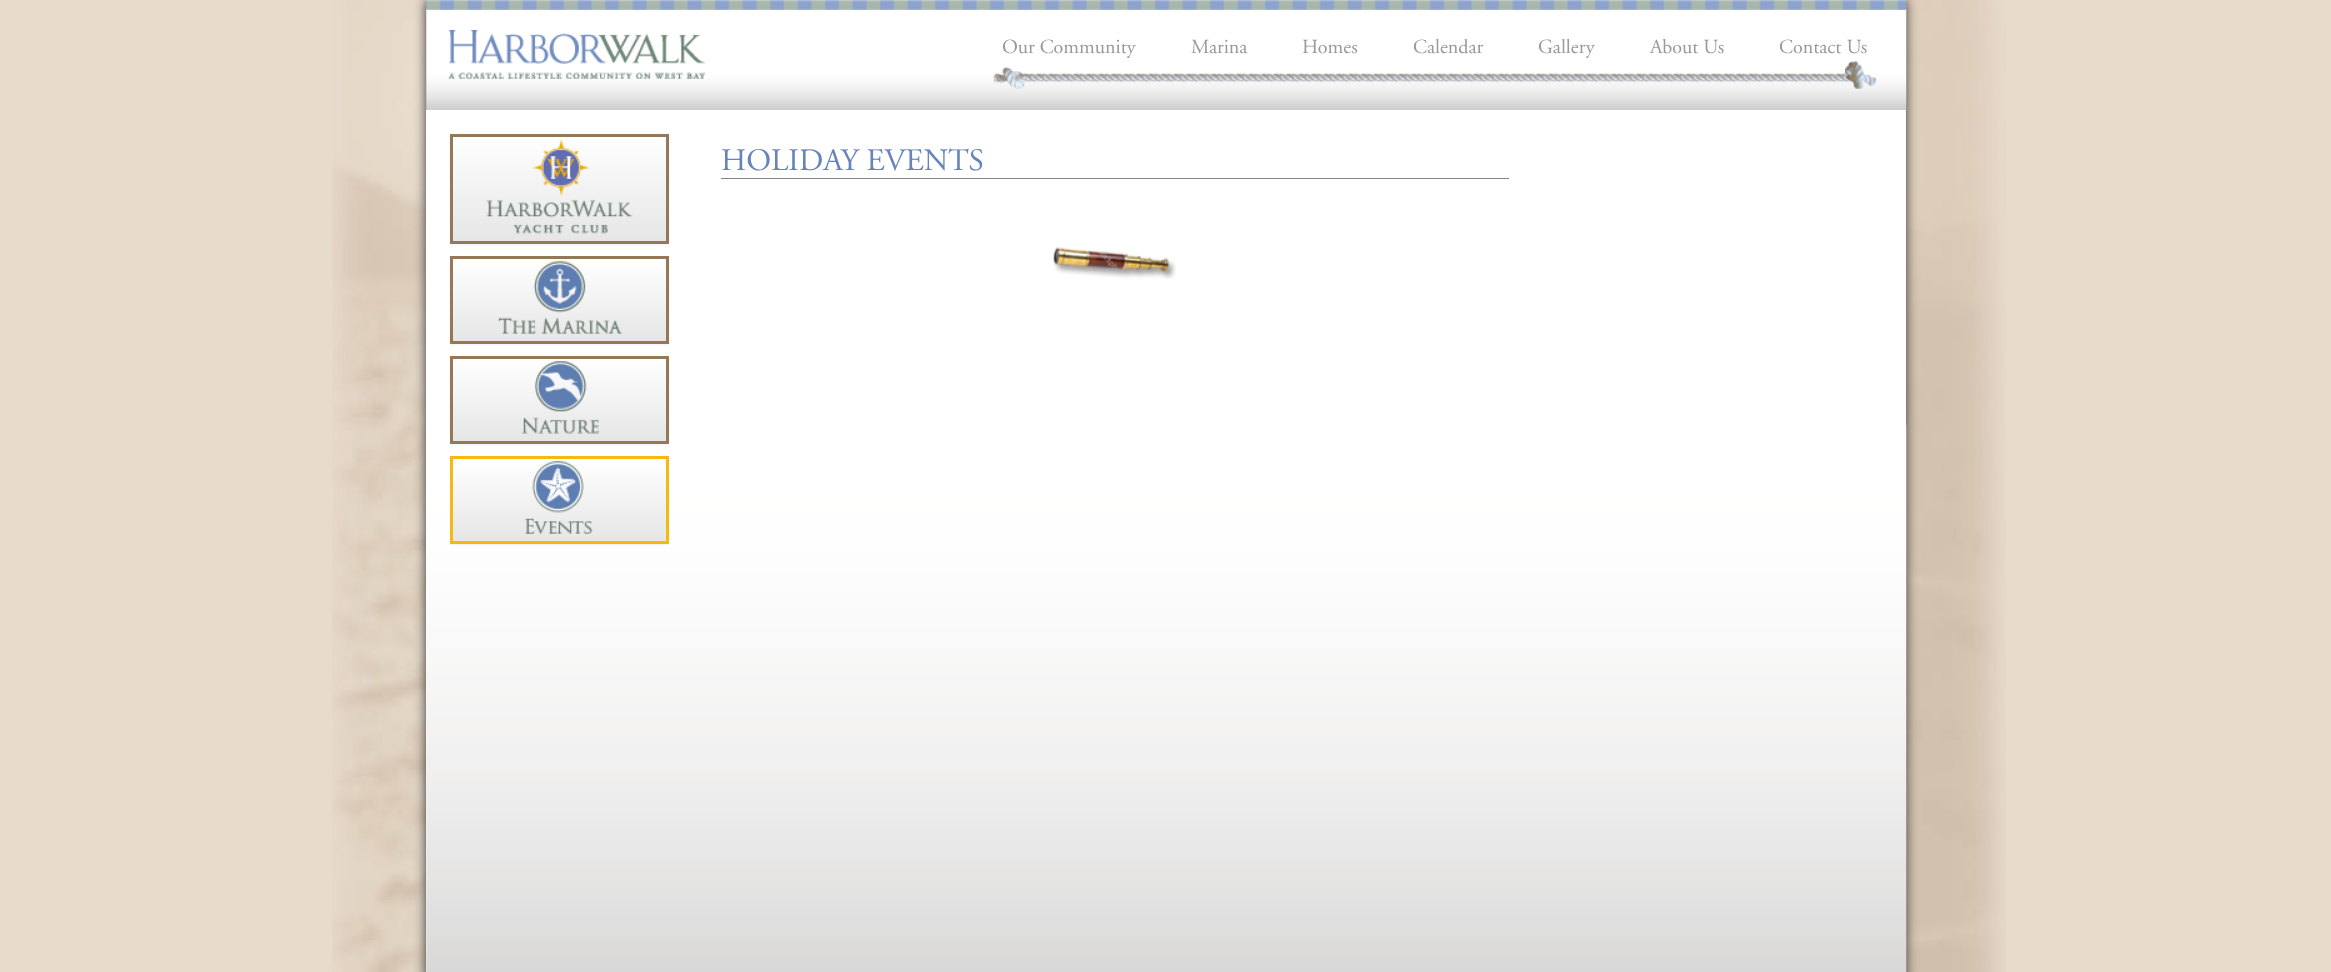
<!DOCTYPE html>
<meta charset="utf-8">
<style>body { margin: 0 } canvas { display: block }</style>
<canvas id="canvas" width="2331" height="972"></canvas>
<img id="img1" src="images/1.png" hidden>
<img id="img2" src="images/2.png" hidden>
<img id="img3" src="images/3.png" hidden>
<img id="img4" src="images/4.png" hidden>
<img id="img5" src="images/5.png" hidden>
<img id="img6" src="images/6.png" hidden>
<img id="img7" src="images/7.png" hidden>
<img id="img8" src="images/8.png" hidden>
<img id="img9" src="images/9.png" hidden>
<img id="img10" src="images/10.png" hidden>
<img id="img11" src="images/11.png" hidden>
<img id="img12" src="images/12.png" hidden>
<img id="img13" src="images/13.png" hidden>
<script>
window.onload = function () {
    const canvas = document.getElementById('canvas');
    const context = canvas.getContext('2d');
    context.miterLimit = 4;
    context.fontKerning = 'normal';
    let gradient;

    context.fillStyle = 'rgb(231, 219, 203)';
    context.fillRect(0, 0, 2331, 972);
    context.drawImage(document.getElementById('img1'), 332, 0, 1674, 972);
    context.fillStyle = 'rgb(51, 51, 51)';
    context.filter = 'blur(6px)';
    context.beginPath();
    context.rect(426, 0, 1480, 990);
    context.fill();
    context.filter = 'none';
    context.drawImage(document.getElementById('img2'), 426, 8, 1481, 102);
    context.drawImage(document.getElementById('img3'), 426, 0, 1481, 10);
    context.drawImage(document.getElementById('img4'), 448, 30, 257, 49);
    context.drawImage(document.getElementById('img5'), 1006, 73, 858, 10);
    context.drawImage(document.getElementById('img6'), 993, 67, 32, 22);
    context.drawImage(document.getElementById('img7'), 1845, 61, 32, 28);
    context.fillStyle = 'rgb(255, 255, 255)';
    context.fillRect(426, 110, 1480, 862);
    context.drawImage(document.getElementById('img8'), 426, 425, 1481, 547);
    context.fillStyle = 'rgba(0, 0, 0, 0.05)';
    context.filter = 'blur(1px)';
    context.beginPath();
    context.rect(450, 135, 219, 110);
    context.fill();
    context.filter = 'none';
    gradient = context.createLinearGradient(559, 136, 559, 241);
    gradient.addColorStop(0, 'rgb(255, 255, 255)');
    gradient.addColorStop(1, 'rgb(230, 230, 230)');
    context.fillStyle = gradient;
    context.fillRect(453, 137, 213, 104);
    context.strokeStyle = 'rgb(150, 120, 86)';
    context.lineWidth = 3;
    context.strokeRect(451.5, 135.5, 216, 107);
    context.drawImage(document.getElementById('img9'), 486, 138, 147, 96);
    context.fillStyle = 'rgba(0, 0, 0, 0.05)';
    context.filter = 'blur(1px)';
    context.beginPath();
    context.rect(450, 258, 219, 87);
    context.fill();
    context.filter = 'none';
    gradient = context.createLinearGradient(559, 259, 559, 341);
    gradient.addColorStop(0, 'rgb(255, 255, 255)');
    gradient.addColorStop(1, 'rgb(230, 230, 230)');
    context.fillStyle = gradient;
    context.fillRect(453, 259, 213, 82);
    context.strokeRect(451.5, 257.5, 216, 85);
    context.drawImage(document.getElementById('img10'), 498, 261, 124, 73);
    context.fillStyle = 'rgba(0, 0, 0, 0.05)';
    context.filter = 'blur(1px)';
    context.beginPath();
    context.rect(450, 358, 219, 87);
    context.fill();
    context.filter = 'none';
    gradient = context.createLinearGradient(559, 359, 559, 441);
    gradient.addColorStop(0, 'rgb(255, 255, 255)');
    gradient.addColorStop(1, 'rgb(230, 230, 230)');
    context.fillStyle = gradient;
    context.fillRect(453, 359, 213, 82);
    context.strokeRect(451.5, 357.5, 216, 85);
    context.drawImage(document.getElementById('img11'), 522, 361, 77, 73);
    context.fillStyle = 'rgba(0, 0, 0, 0.05)';
    context.filter = 'blur(1px)';
    context.beginPath();
    context.rect(450, 458, 219, 87);
    context.fill();
    context.filter = 'none';
    gradient = context.createLinearGradient(559, 459, 559, 541);
    gradient.addColorStop(0, 'rgb(255, 255, 255)');
    gradient.addColorStop(1, 'rgb(230, 230, 230)');
    context.fillStyle = gradient;
    context.fillRect(453, 459, 213, 82);
    context.strokeStyle = 'rgb(247, 184, 18)';
    context.strokeRect(451.5, 457.5, 216, 85);
    context.drawImage(document.getElementById('img12'), 525, 461, 68, 73);
    context.fillStyle = 'rgb(132, 132, 132)';
    context.fillRect(721, 178, 788, 1);
    context.drawImage(document.getElementById('img13'), 1053, 247, 123, 32);
    context.font = '20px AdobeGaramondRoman';
    context.fillStyle = 'rgb(153, 153, 153)';
    context.fillText('Our Community', 1002, 53);
    context.fillText('Marina', 1191, 53);
    context.fillText('Homes', 1302, 53);
    context.fillText('Calendar', 1413, 53);
    context.fillText('Gallery', 1538, 53);
    context.fillText('About Us', 1650, 53);
    context.fillText('Contact Us', 1779, 53);
    context.font = '31.25px AdobeGaramondRoman';
    context.fillStyle = 'rgb(102, 132, 186)';
    context.fillText('HOLIDAY EVENTS', 721, 170);
};
</script>
